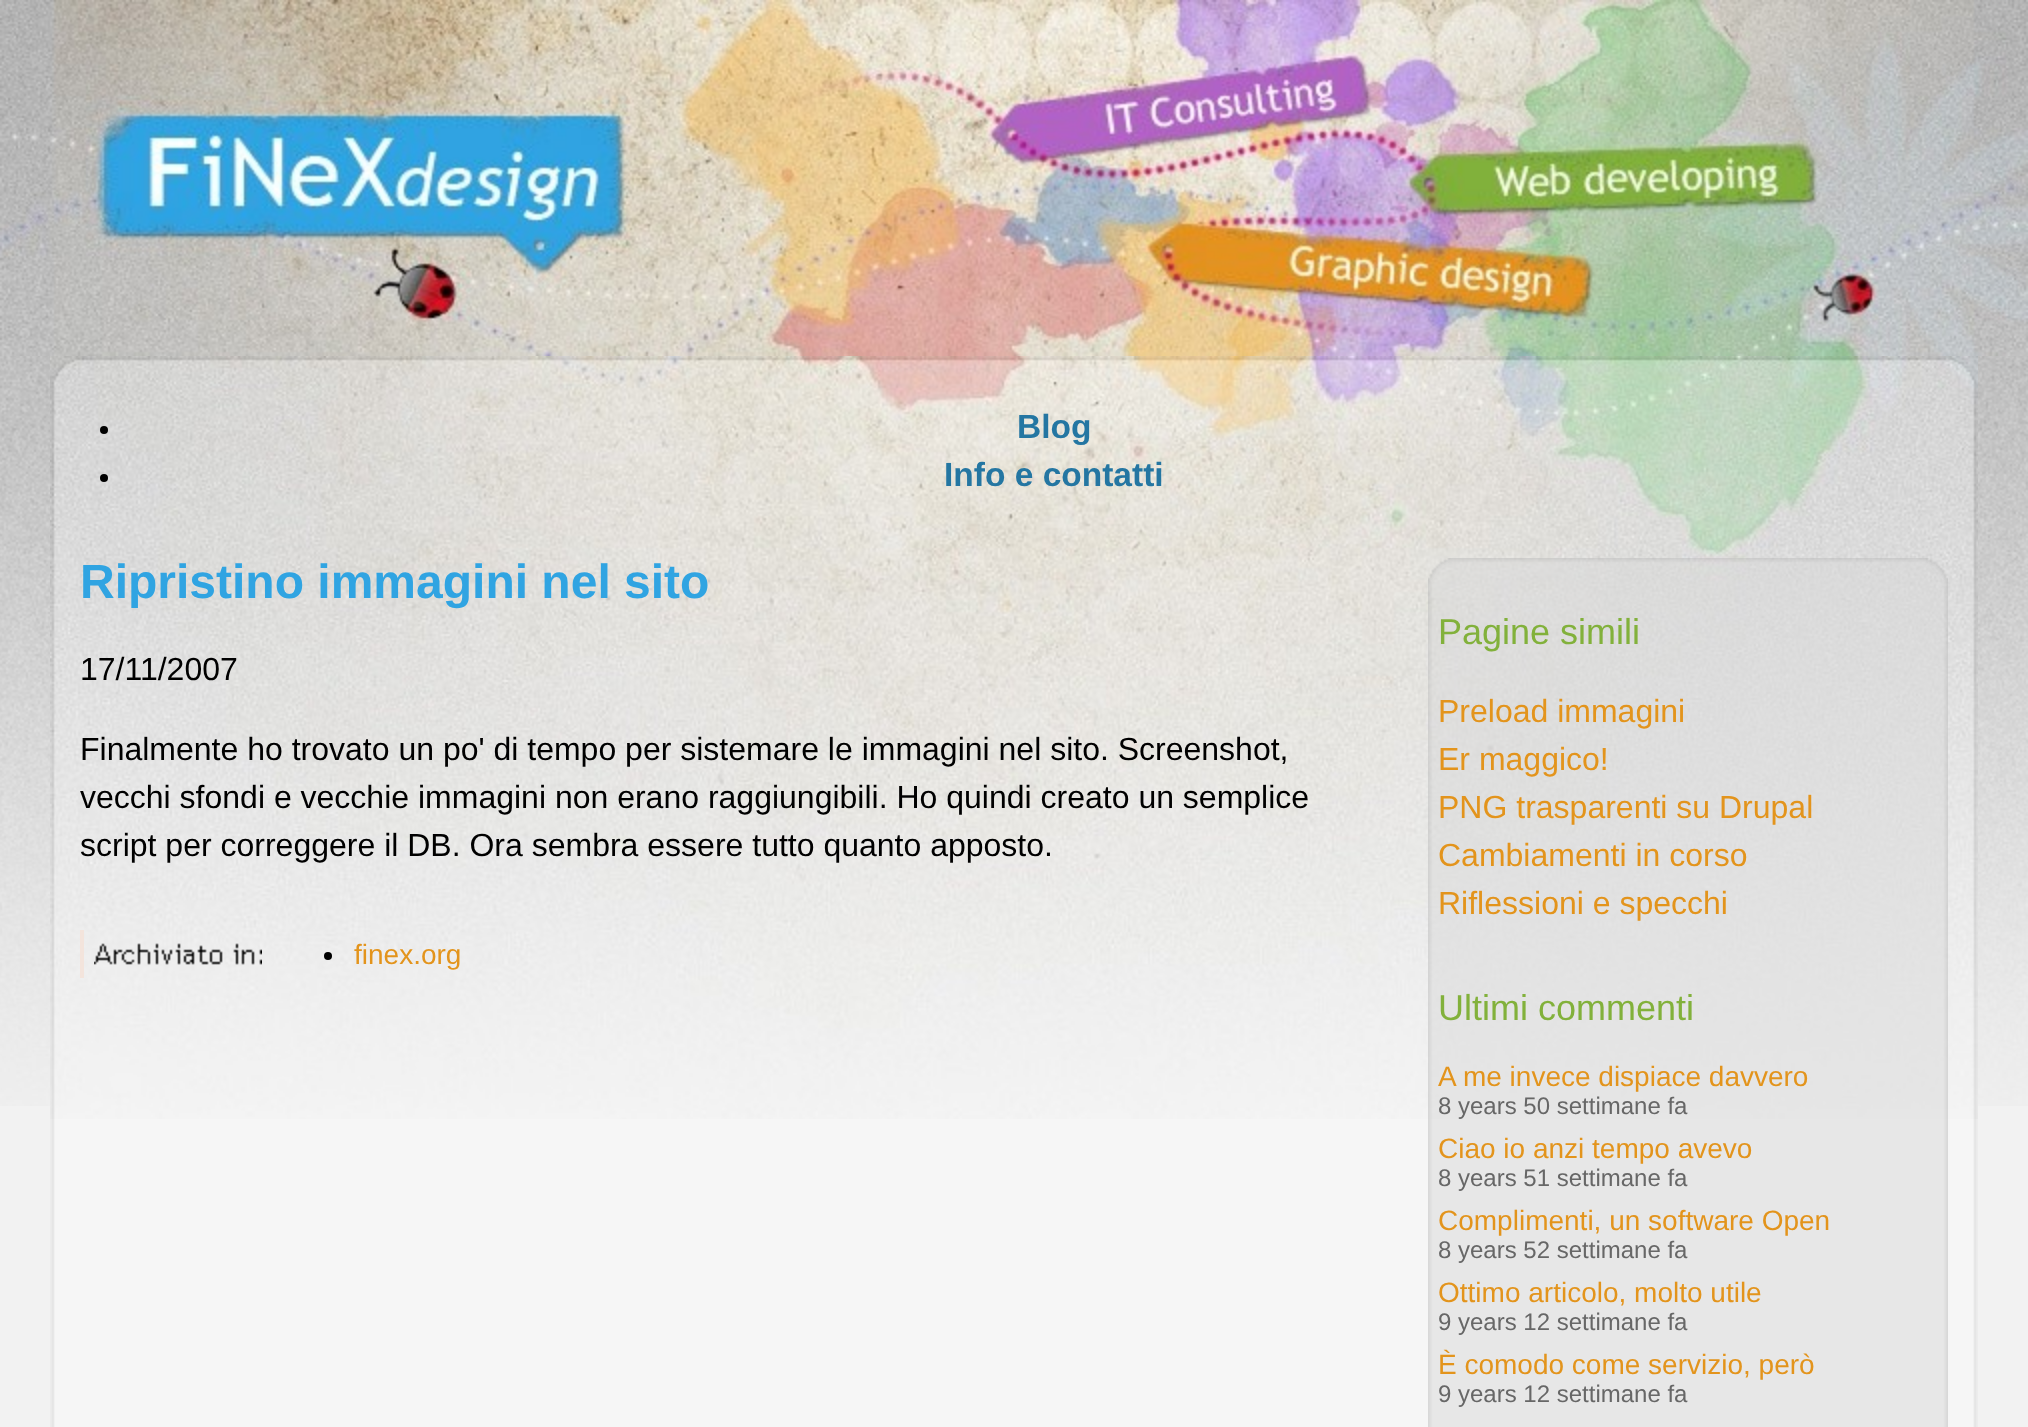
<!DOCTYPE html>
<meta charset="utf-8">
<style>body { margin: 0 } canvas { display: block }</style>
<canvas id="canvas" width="2028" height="1427"></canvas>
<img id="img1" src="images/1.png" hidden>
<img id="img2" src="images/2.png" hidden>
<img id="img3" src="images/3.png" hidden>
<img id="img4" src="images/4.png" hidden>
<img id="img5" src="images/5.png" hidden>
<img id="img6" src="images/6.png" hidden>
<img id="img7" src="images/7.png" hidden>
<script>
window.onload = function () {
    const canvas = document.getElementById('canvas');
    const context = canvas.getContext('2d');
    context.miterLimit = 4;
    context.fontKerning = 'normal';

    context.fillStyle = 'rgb(242, 242, 242)';
    context.fillRect(0, 0, 2028, 1427);
    context.drawImage(document.getElementById('img1'), 0, 356, 2028, 750);
    context.drawImage(document.getElementById('img2'), 0, 0, 2028, 356);
    context.drawImage(document.getElementById('img3'), 50, 1119, 1928, 308);
    context.drawImage(document.getElementById('img4'), 50, 356, 1928, 763);
    context.fillStyle = 'rgb(0, 0, 0)';
    context.beginPath();
    context.arc(104, 430, 4, 0, 2 * Math.PI);
    context.fill();
    context.beginPath();
    context.arc(104, 478, 4, 0, 2 * Math.PI);
    context.fill();
    context.fillStyle = 'rgb(243, 228, 220)';
    context.fillRect(80, 930, 4, 48);
    context.drawImage(document.getElementById('img5'), 94, 943, 168, 22);
    context.fillStyle = 'rgb(0, 0, 0)';
    context.beginPath();
    context.arc(328, 956, 4, 0, 2 * Math.PI);
    context.fill();
    context.drawImage(document.getElementById('img6'), 1428, 558, 520, 40);
    context.drawImage(document.getElementById('img7'), 1428, 598, 520, 829);
    context.font = 'bold 33.5px Liberation Sans';
    context.fillStyle = 'rgb(36, 118, 162)';
    context.fillText('Blog', 1017, 438);
    context.fillText('Info e contatti', 944, 486);
    context.font = 'bold 48px Liberation Sans';
    context.fillStyle = 'rgb(48, 164, 226)';
    context.fillText('Ripristino immagini nel sito', 80, 598);
    context.font = '32px Liberation Sans';
    context.fillStyle = 'rgb(0, 0, 0)';
    context.fillText('17/11/2007', 80, 680);
    context.fillText('Finalmente ho trovato un po\' di tempo per sistemare le immagini nel sito. Screenshot,', 80, 760);
    context.fillText('vecchi sfondi e vecchie immagini non erano raggiungibili. Ho quindi creato un semplice', 80, 808);
    context.fillText('script per correggere il DB. Ora sembra essere tutto quanto apposto.', 80, 856);
    context.font = '28px Liberation Sans';
    context.fillStyle = 'rgb(227, 148, 28)';
    context.fillText('finex.org', 354, 964);
    context.font = '36px Liberation Sans';
    context.fillStyle = 'rgb(130, 177, 59)';
    context.fillText('Pagine simili', 1438, 644);
    context.font = '32px Liberation Sans';
    context.fillStyle = 'rgb(227, 148, 28)';
    context.fillText('Preload immagini', 1438, 722);
    context.fillText('Er maggico!', 1438, 770);
    context.fillText('PNG trasparenti su Drupal', 1438, 818);
    context.fillText('Cambiamenti in corso', 1438, 866);
    context.fillText('Riflessioni e specchi', 1438, 914);
    context.font = '36px Liberation Sans';
    context.fillStyle = 'rgb(130, 177, 59)';
    context.fillText('Ultimi commenti', 1438, 1020);
    context.font = '28px Liberation Sans';
    context.fillStyle = 'rgb(227, 148, 28)';
    context.fillText('A me invece dispiace davvero', 1438, 1086);
    context.font = '24px Liberation Sans';
    context.fillStyle = 'rgb(103, 103, 103)';
    context.fillText('8 years 50 settimane fa', 1438, 1114);
    context.font = '28px Liberation Sans';
    context.fillStyle = 'rgb(227, 148, 28)';
    context.fillText('Ciao io anzi tempo avevo', 1438, 1158);
    context.font = '24px Liberation Sans';
    context.fillStyle = 'rgb(103, 103, 103)';
    context.fillText('8 years 51 settimane fa', 1438, 1186);
    context.font = '28px Liberation Sans';
    context.fillStyle = 'rgb(227, 148, 28)';
    context.fillText('Complimenti, un software Open', 1438, 1230);
    context.font = '24px Liberation Sans';
    context.fillStyle = 'rgb(103, 103, 103)';
    context.fillText('8 years 52 settimane fa', 1438, 1258);
    context.font = '28px Liberation Sans';
    context.fillStyle = 'rgb(227, 148, 28)';
    context.fillText('Ottimo articolo, molto utile', 1438, 1302);
    context.font = '24px Liberation Sans';
    context.fillStyle = 'rgb(103, 103, 103)';
    context.fillText('9 years 12 settimane fa', 1438, 1330);
    context.font = '28px Liberation Sans';
    context.fillStyle = 'rgb(227, 148, 28)';
    context.fillText('È comodo come servizio, però', 1438, 1374);
    context.font = '24px Liberation Sans';
    context.fillStyle = 'rgb(103, 103, 103)';
    context.fillText('9 years 12 settimane fa', 1438, 1402);
};
</script>
